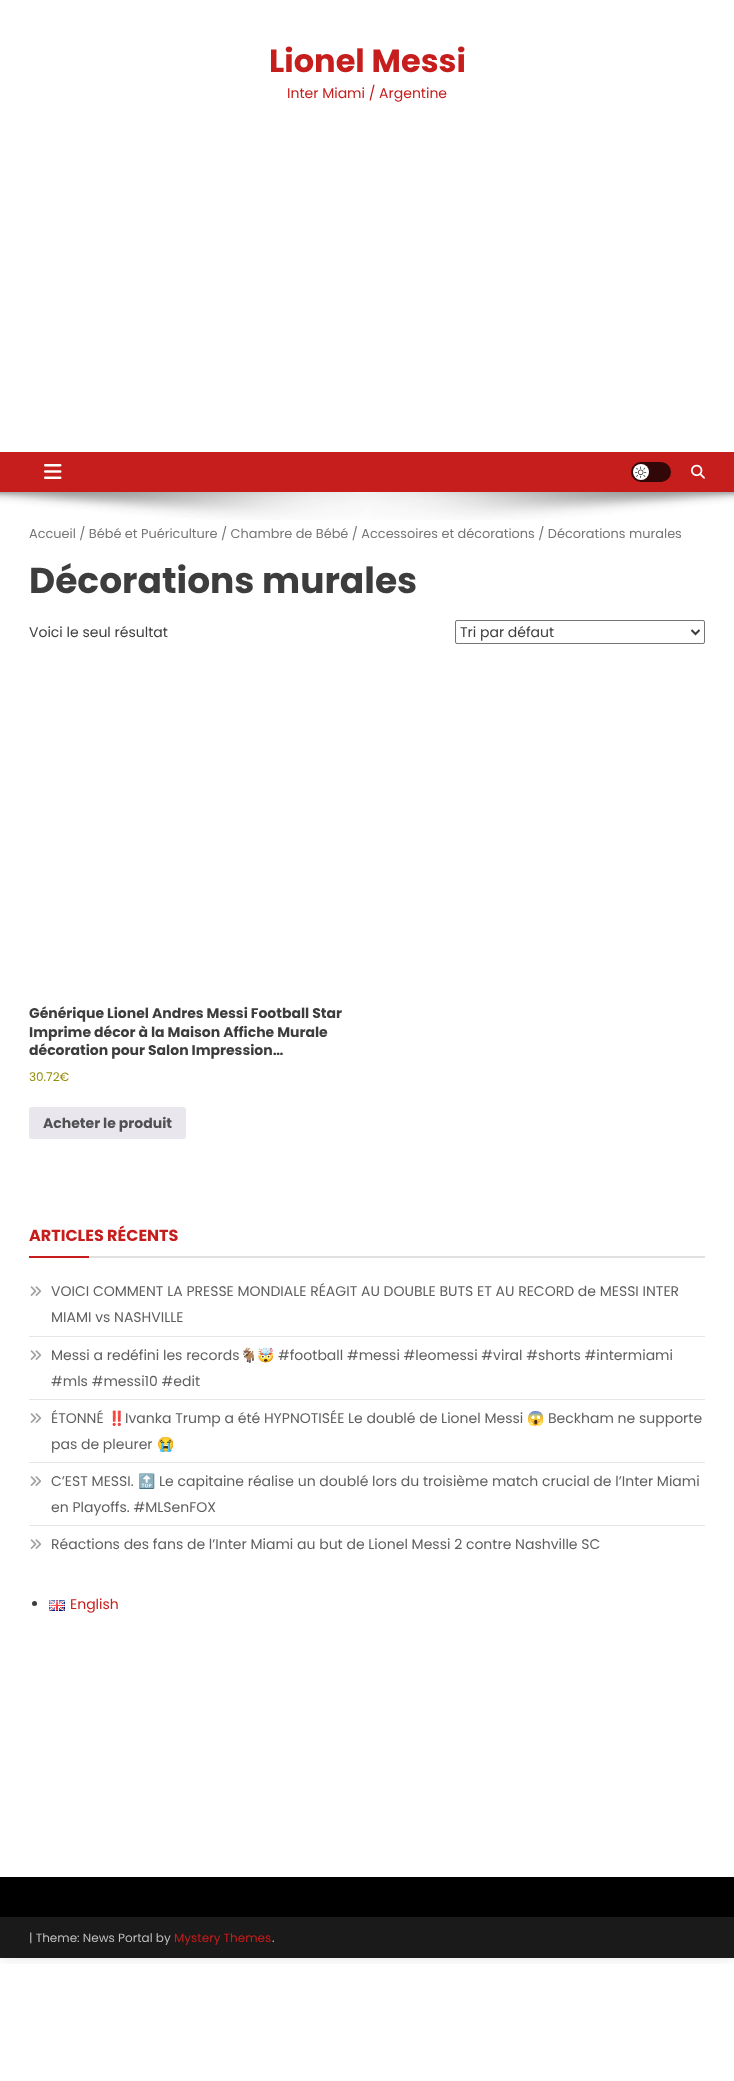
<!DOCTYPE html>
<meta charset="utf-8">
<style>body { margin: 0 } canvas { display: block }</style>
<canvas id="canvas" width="734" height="2081"></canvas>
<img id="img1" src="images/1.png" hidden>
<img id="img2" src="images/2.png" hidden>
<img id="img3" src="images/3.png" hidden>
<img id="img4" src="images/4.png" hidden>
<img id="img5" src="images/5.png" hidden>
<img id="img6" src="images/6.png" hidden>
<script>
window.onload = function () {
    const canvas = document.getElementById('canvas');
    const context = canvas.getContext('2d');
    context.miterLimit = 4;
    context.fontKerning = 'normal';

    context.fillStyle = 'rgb(255, 255, 255)';
    context.fillRect(0, 0, 734, 2081);
    context.save();
    context.beginPath();
    context.rect(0, 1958, 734, 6);
    context.clip();
    context.fillStyle = 'rgba(0, 0, 0, 0.1)';
    context.filter = 'blur(7.5px)';
    context.beginPath();
    context.rect(0, 0, 734, 1958);
    context.fill();
    context.filter = 'none';
    context.restore();
    context.fillStyle = 'rgb(198, 29, 29)';
    context.fillRect(0, 452, 734, 40);
    context.drawImage(document.getElementById('img1'), 44, 464, 18, 15);
    context.fillStyle = 'rgb(50, 7, 7)';
    context.beginPath();
    context.roundRect(631, 462, 40, 20, 10);
    context.fill();
    context.fillStyle = 'rgb(255, 255, 255)';
    context.beginPath();
    context.arc(641, 472, 8, 0, 2 * Math.PI);
    context.fill();
    context.drawImage(document.getElementById('img2'), 635, 466, 12, 12);
    context.drawImage(document.getElementById('img3'), 691, 464, 14, 15);
    context.drawImage(document.getElementById('img4'), 0, 492, 734, 28);
    context.beginPath();
    context.roundRect(455.5, 620.5, 249, 23, 1.5);
    context.strokeStyle = 'rgb(118, 118, 118)';
    context.stroke();
    context.beginPath();
    context.moveTo(691.5, 630);
    context.lineTo(695.5, 634);
    context.lineTo(699.5, 630);
    context.strokeStyle = 'rgb(61, 61, 61)';
    context.lineWidth = 2;
    context.stroke();
    context.fillStyle = 'rgb(233, 230, 237)';
    context.beginPath();
    context.roundRect(29, 1107, 157, 32, 3);
    context.fill();
    context.fillStyle = 'rgb(225, 225, 225)';
    context.fillRect(89, 1256, 616, 2);
    context.fillStyle = 'rgb(198, 29, 29)';
    context.fillRect(29, 1256, 60, 2);
    context.fillStyle = 'rgb(230, 230, 230)';
    context.fillRect(29, 1336, 676, 1);
    context.drawImage(document.getElementById('img5'), 30, 1286, 12, 10);
    context.fillRect(29, 1399, 676, 1);
    context.drawImage(document.getElementById('img5'), 30, 1350, 12, 10);
    context.fillRect(29, 1462, 676, 1);
    context.drawImage(document.getElementById('img5'), 30, 1413, 12, 10);
    context.fillRect(29, 1525, 676, 1);
    context.drawImage(document.getElementById('img5'), 30, 1476, 12, 10);
    context.drawImage(document.getElementById('img5'), 30, 1539, 12, 10);
    context.fillStyle = 'rgb(61, 61, 61)';
    context.beginPath();
    context.arc(34.5, 1603.5, 2.5, 0, 2 * Math.PI);
    context.fill();
    context.drawImage(document.getElementById('img6'), 49, 1600, 16, 11);
    context.fillStyle = 'rgb(0, 0, 0)';
    context.fillRect(0, 1877, 734, 40);
    context.fillStyle = 'rgb(26, 26, 26)';
    context.fillRect(0, 1917, 734, 41);
    context.font = 'bold 32px Poppins';
    context.fillStyle = 'rgb(198, 29, 29)';
    context.fillText('Lionel Messi', 269, 72);
    context.font = '14px Poppins';
    context.fillText('Inter Miami / Argentine', 287, 98);
    context.font = '12.88px Poppins';
    context.fillStyle = 'rgb(118, 118, 118)';
    context.fillText('Accueil / Bébé et Puériculture / Chambre de Bébé / Accessoires et décorations / Décorations murales', 29, 538);
    context.font = 'bold 36px Poppins';
    context.fillStyle = 'rgb(61, 61, 61)';
    context.fillText('Décorations murales', 29, 593);
    context.font = '14px Poppins';
    context.fillText('Voici le seul résultat', 29, 637);
    context.fillText('Tri par défaut', 460, 637);
    context.font = 'bold 14px Poppins';
    context.fillText('Générique Lionel Andres Messi Football Star', 29, 1018);
    context.fillText('Imprime décor à la Maison Affiche Murale', 29, 1037);
    context.fillText('décoration pour Salon Impression…', 29, 1055);
    context.font = '12px Poppins';
    context.fillStyle = 'rgb(149, 142, 9)';
    context.fillText('30.72€', 29, 1081);
    context.font = 'bold 14px Poppins';
    context.fillStyle = 'rgb(81, 81, 81)';
    context.fillText('Acheter le produit', 43, 1128);
    context.font = 'bold 16px Poppins';
    context.fillStyle = 'rgb(198, 29, 29)';
    context.fillText('ARTICLES RÉCENTS', 29, 1241);
    context.font = '14px Poppins';
    context.fillStyle = 'rgb(95, 95, 95)';
    context.fillText('VOICI COMMENT LA PRESSE MONDIALE RÉAGIT AU DOUBLE BUTS ET AU RECORD de MESSI INTER', 51, 1296);
    context.fillText('MIAMI vs NASHVILLE', 51, 1322);
    context.fillText('Messi a redéfini les records', 51, 1360);
    context.font = '14px Noto Color Emoji';
    context.fillText('🐐🤯', 240, 1360);
    context.font = '14px Poppins';
    context.fillText('#football #messi #leomessi #viral #shorts #intermiami', 278, 1360);
    context.fillText('#mls #messi10 #edit', 51, 1386);
    context.fillText('ÉTONNÉ', 51, 1423);
    context.font = '14px Noto Color Emoji';
    context.fillText('‼️', 108, 1423);
    context.font = '14px Poppins';
    context.fillText('Ivanka Trump a été HYPNOTISÉE Le doublé de Lionel Messi', 125, 1423);
    context.font = '14px Noto Color Emoji';
    context.fillText('😱', 527, 1423);
    context.font = '14px Poppins';
    context.fillText('Beckham ne supporte', 548, 1423);
    context.fillText('pas de pleurer', 51, 1449);
    context.font = '14px Noto Color Emoji';
    context.fillText('😭', 157, 1449);
    context.font = '14px Poppins';
    context.fillText('C’EST MESSI.', 51, 1486);
    context.font = '14px Noto Color Emoji';
    context.fillText('🔝', 138, 1486);
    context.font = '14px Poppins';
    context.fillText('Le capitaine réalise un doublé lors du troisième match crucial de l’Inter Miami', 159, 1486);
    context.fillText('en Playoffs. #MLSenFOX', 51, 1512);
    context.fillText('Réactions des fans de l’Inter Miami au but de Lionel Messi 2 contre Nashville SC', 51, 1549);
    context.fillStyle = 'rgb(198, 29, 29)';
    context.fillText('English', 70, 1609);
    context.font = '12px Poppins';
    context.fillStyle = 'rgb(191, 191, 191)';
    context.fillText('| Theme: News Portal by', 29, 1942);
    context.fillStyle = 'rgb(198, 29, 29)';
    context.fillText('Mystery Themes', 174, 1942);
    context.fillStyle = 'rgb(191, 191, 191)';
    context.fillText('.', 272, 1942);
};
</script>
